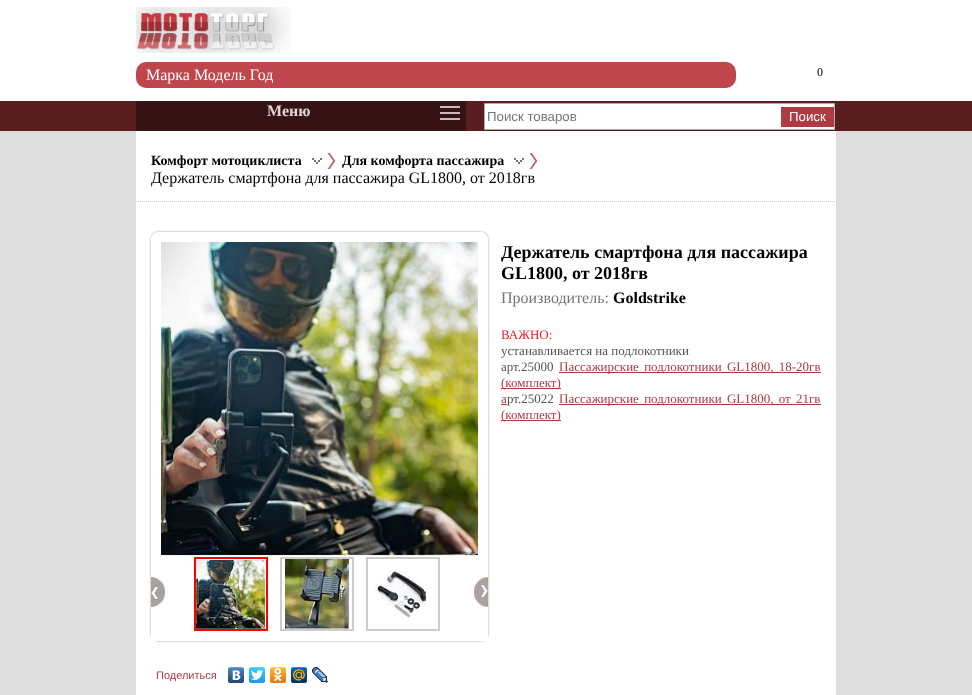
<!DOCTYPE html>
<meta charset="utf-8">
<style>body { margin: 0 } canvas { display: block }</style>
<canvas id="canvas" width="972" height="695"></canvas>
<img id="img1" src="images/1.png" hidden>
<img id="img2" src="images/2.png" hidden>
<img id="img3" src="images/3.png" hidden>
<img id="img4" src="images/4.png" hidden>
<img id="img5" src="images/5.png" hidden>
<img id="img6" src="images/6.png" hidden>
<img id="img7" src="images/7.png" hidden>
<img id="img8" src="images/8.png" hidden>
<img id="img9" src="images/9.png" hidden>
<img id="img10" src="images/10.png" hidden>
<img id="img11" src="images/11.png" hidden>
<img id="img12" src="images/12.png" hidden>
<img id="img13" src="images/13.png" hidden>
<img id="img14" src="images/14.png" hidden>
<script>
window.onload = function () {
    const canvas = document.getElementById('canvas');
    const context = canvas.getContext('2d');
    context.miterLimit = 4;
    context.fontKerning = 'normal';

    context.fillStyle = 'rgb(255, 255, 255)';
    context.fillRect(0, 0, 972, 695);
    context.fillStyle = 'rgb(90, 30, 33)';
    context.fillRect(0, 101, 972, 30);
    context.drawImage(document.getElementById('img1'), 136, 7, 155, 46);
    context.fillStyle = 'rgb(191, 70, 77)';
    context.beginPath();
    context.roundRect(136, 62, 600, 26, 10);
    context.fill();
    context.fillStyle = 'rgb(53, 18, 20)';
    context.fillRect(136, 101, 330, 30);
    context.fillStyle = 'rgb(203, 184, 185)';
    context.fillRect(440, 106, 20, 2);
    context.fillRect(440, 112, 20, 2);
    context.fillRect(440, 118, 20, 2);
    context.fillStyle = 'rgb(255, 255, 255)';
    context.beginPath();
    context.rect(484.5, 103.5, 350, 26);
    context.fill();
    context.strokeStyle = 'rgb(172, 172, 172)';
    context.stroke();
    context.fillStyle = 'rgb(175, 58, 65)';
    context.fillRect(781, 107, 53, 20);
    context.fillStyle = 'rgb(221, 221, 221)';
    context.fillRect(0, 131, 972, 564);
    context.fillStyle = 'rgb(255, 255, 255)';
    context.fillRect(136, 131, 700, 564);
    context.beginPath();
    context.moveTo(136, 201.5);
    context.lineTo(836, 201.5);
    context.strokeStyle = 'rgb(204, 204, 204)';
    context.setLineDash([1, 1]);
    context.stroke();
    context.drawImage(document.getElementById('img2'), 312, 158, 10, 6);
    context.drawImage(document.getElementById('img3'), 327, 153, 8, 16);
    context.drawImage(document.getElementById('img2'), 514, 158, 10, 6);
    context.drawImage(document.getElementById('img3'), 529, 153, 8, 16);
    context.save();
    context.beginPath();
    context.moveTo(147, 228);
    context.lineTo(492, 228);
    context.lineTo(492, 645);
    context.lineTo(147, 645);
    context.closePath();
    context.moveTo(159, 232);
    context.lineTo(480, 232);
    context.bezierCurveTo(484.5, 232, 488, 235.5, 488, 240);
    context.lineTo(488, 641);
    context.lineTo(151, 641);
    context.lineTo(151, 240);
    context.bezierCurveTo(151, 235.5, 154.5, 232, 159, 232);
    context.closePath();
    context.clip('evenodd');
    context.fillStyle = 'rgb(153, 153, 153)';
    context.filter = 'blur(1px)';
    context.beginPath();
    context.roundRect(151, 232, 337, 409, 8);
    context.fill();
    context.filter = 'none';
    context.restore();
    context.beginPath();
    context.roundRect(156, 237, 327, 399, [3, 3, 0, 0]);
    context.strokeStyle = 'rgb(255, 255, 255)';
    context.lineWidth = 10;
    context.setLineDash([]);
    context.stroke();
    context.drawImage(document.getElementById('img4'), 161, 242, 317, 314);
    context.strokeStyle = 'rgb(255, 0, 0)';
    context.lineWidth = 2;
    context.strokeRect(195, 558, 72, 72);
    context.drawImage(document.getElementById('img5'), 196, 560, 69, 69);
    context.strokeStyle = 'rgb(204, 204, 204)';
    context.strokeRect(281, 558, 72, 72);
    context.drawImage(document.getElementById('img6'), 285, 559, 64, 70);
    context.strokeRect(367, 558, 72, 72);
    context.drawImage(document.getElementById('img7'), 374, 571, 53, 47);
    context.drawImage(document.getElementById('img8'), 151, 577, 14, 30);
    context.drawImage(document.getElementById('img9'), 474, 577, 14, 30);
    context.fillStyle = 'rgb(175, 58, 65)';
    context.fillRect(559, 372, 262, 1);
    context.fillRect(501, 388, 60, 1);
    context.fillRect(501, 404, 6, 1);
    context.fillRect(559, 404, 262, 1);
    context.fillRect(501, 420, 60, 1);
    context.drawImage(document.getElementById('img10'), 228, 667, 16, 16);
    context.drawImage(document.getElementById('img11'), 249, 667, 16, 16);
    context.drawImage(document.getElementById('img12'), 270, 667, 16, 16);
    context.drawImage(document.getElementById('img13'), 291, 667, 16, 16);
    context.drawImage(document.getElementById('img14'), 312, 667, 16, 16);
    context.font = '16px Liberation Serif';
    context.fillStyle = 'rgb(255, 255, 255)';
    context.fillText('Марка Модель Год', 146, 80);
    context.font = '12px Liberation Serif';
    context.fillStyle = 'rgb(0, 0, 0)';
    context.fillText('0', 817, 76);
    context.font = 'bold 16px Liberation Serif';
    context.fillStyle = 'rgb(226, 213, 213)';
    context.fillText('Меню', 267, 116);
    context.font = '13.25px Liberation Sans';
    context.fillStyle = 'rgb(117, 117, 117)';
    context.fillText('Поиск товаров', 487, 121);
    context.fillStyle = 'rgb(255, 255, 255)';
    context.fillText('Поиск', 789, 121);
    context.font = 'bold 14px Liberation Serif';
    context.fillStyle = 'rgb(0, 0, 0)';
    context.fillText('Комфорт мотоциклиста', 151, 165);
    context.fillText('Для комфорта пассажира', 342, 165);
    context.font = '16px Liberation Serif';
    context.fillText('Держатель смартфона для пассажира GL1800, от 2018гв', 151, 183);
    context.font = 'bold 18px Liberation Serif';
    context.fillText('Держатель смартфона для пассажира', 501, 258);
    context.fillText('GL1800, от 2018гв', 501, 279);
    context.font = '16px Liberation Serif';
    context.fillStyle = 'rgb(117, 117, 117)';
    context.fillText('Производитель:', 501, 303);
    context.font = 'bold 16px Liberation Serif';
    context.fillStyle = 'rgb(0, 0, 0)';
    context.fillText('Goldstrike', 613, 303);
    context.font = '13px Liberation Serif';
    context.fillStyle = 'rgb(238, 29, 36)';
    context.fillText('ВАЖНО:', 501, 339);
    context.fillStyle = 'rgb(85, 85, 85)';
    context.fillText('устанавливается на подлокотники', 501, 355);
    context.fillText('арт.25000', 501, 371);
    context.wordSpacing = '2px';
    context.fillStyle = 'rgb(175, 58, 65)';
    context.fillText('Пассажирские подлокотники GL1800, 18-20гв', 559, 371);
    context.wordSpacing = '0px';
    context.fillText('(комплект)', 501, 387);
    context.fillText('а', 501, 403);
    context.fillStyle = 'rgb(85, 85, 85)';
    context.fillText('рт.25022', 507, 403);
    context.wordSpacing = '2px';
    context.fillStyle = 'rgb(175, 58, 65)';
    context.fillText('Пассажирские подлокотники GL1800, от 21гв', 559, 403);
    context.wordSpacing = '0px';
    context.fillText('(комплект)', 501, 419);
    context.font = '11px Liberation Sans';
    context.fillText('Поделиться', 156, 679);
};
</script>
